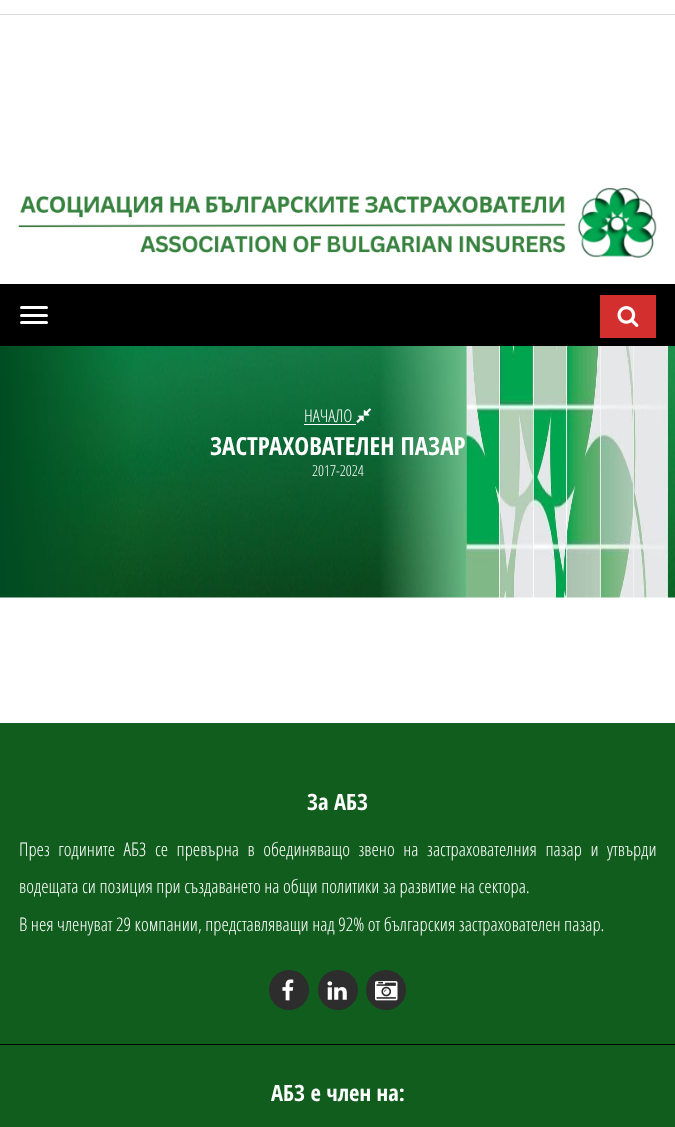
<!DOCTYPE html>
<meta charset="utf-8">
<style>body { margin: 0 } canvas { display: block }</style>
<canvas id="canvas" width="675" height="1127"></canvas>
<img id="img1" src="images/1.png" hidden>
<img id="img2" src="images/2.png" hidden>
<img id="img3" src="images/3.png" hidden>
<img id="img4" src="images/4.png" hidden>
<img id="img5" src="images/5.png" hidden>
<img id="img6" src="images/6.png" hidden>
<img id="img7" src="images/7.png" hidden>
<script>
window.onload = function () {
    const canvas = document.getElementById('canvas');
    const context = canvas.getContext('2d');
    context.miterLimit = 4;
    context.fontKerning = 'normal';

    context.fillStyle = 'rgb(255, 255, 255)';
    context.fillRect(0, 0, 675, 1127);
    context.fillStyle = 'rgb(221, 221, 221)';
    context.fillRect(0, 14, 675, 1);
    context.drawImage(document.getElementById('img1'), 18, 188, 639, 70);
    context.fillStyle = 'rgb(0, 0, 0)';
    context.fillRect(0, 284, 675, 62);
    context.fillStyle = 'rgb(255, 255, 255)';
    context.beginPath();
    context.roundRect(20, 306, 28, 3, 1.5);
    context.fill();
    context.beginPath();
    context.roundRect(20, 314, 28, 3, 1.5);
    context.fill();
    context.beginPath();
    context.roundRect(20, 321, 28, 3, 1.5);
    context.fill();
    context.fillStyle = 'rgb(211, 47, 47)';
    context.fillRect(600, 295, 56, 43);
    context.drawImage(document.getElementById('img2'), 617, 306, 22, 21);
    context.drawImage(document.getElementById('img3'), 0, 346, 675, 252);
    context.fillStyle = 'rgb(255, 255, 255)';
    context.fillRect(304, 424, 52, 1);
    context.drawImage(document.getElementById('img4'), 356, 408, 16, 15);
    context.fillStyle = 'rgb(17, 93, 30)';
    context.fillRect(0, 723, 675, 404);
    context.fillStyle = 'rgb(0, 0, 0)';
    context.fillRect(0, 1044, 675, 1);
    context.fillStyle = 'rgb(45, 45, 45)';
    context.beginPath();
    context.arc(289, 990, 20, 0, 2 * Math.PI);
    context.fill();
    context.drawImage(document.getElementById('img5'), 282, 979, 12, 22);
    context.beginPath();
    context.arc(338, 990, 20, 0, 2 * Math.PI);
    context.fill();
    context.drawImage(document.getElementById('img6'), 327, 981, 20, 19);
    context.beginPath();
    context.arc(386, 990, 20, 0, 2 * Math.PI);
    context.fill();
    context.drawImage(document.getElementById('img7'), 375, 981, 23, 20);
    context.font = '300 17.5px Open Sans Condensed';
    context.fillStyle = 'rgb(255, 255, 255)';
    context.fillText('НАЧАЛО', 304, 422);
    context.font = 'bold 25px Open Sans Condensed';
    context.fillText('ЗАСТРАХОВАТЕЛЕН ПАЗАР', 210, 455);
    context.font = '300 15px Open Sans Condensed';
    context.fillText('2017-2024', 312, 476);
    context.font = 'bold 22.5px Open Sans Condensed';
    context.fillText('За АБЗ', 307, 810);
    context.wordSpacing = '5px';
    context.font = '300 18.75px Open Sans Condensed';
    context.fillText('През годините АБЗ се превърна в обединяващо звено на застрахователния пазар и утвърди', 19, 856);
    context.wordSpacing = '0px';
    context.fillText('водещата си позиция при създаването на общи политики за развитие на сектора.', 19, 893);
    context.fillText('В нея членуват 29 компании, представляващи над 92% от българския застрахователен пазар.', 19, 931);
    context.font = 'bold 22.5px Open Sans Condensed';
    context.fillText('АБЗ е член на:', 271, 1101);
};
</script>
